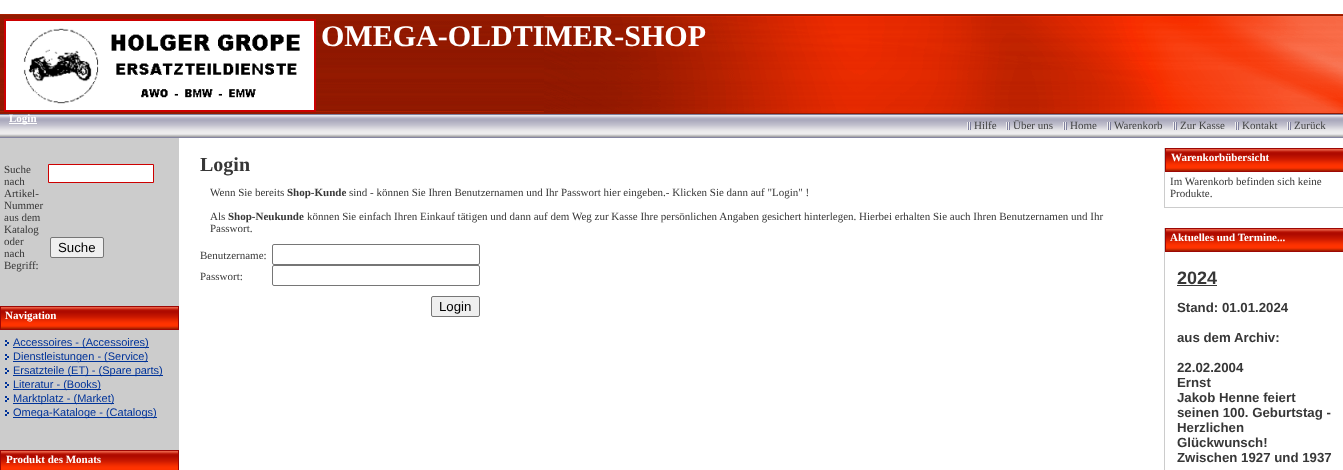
<!DOCTYPE html>
<meta charset="utf-8">
<style>body { margin: 0 } canvas { display: block }</style>
<canvas id="canvas" width="1343" height="470"></canvas>
<img id="img1" src="images/1.png" hidden>
<img id="img2" src="images/2.png" hidden>
<img id="img3" src="images/3.png" hidden>
<img id="img4" src="images/4.png" hidden>
<img id="img5" src="images/5.png" hidden>
<img id="img6" src="images/6.png" hidden>
<img id="img7" src="images/7.png" hidden>
<img id="img8" src="images/8.png" hidden>
<script>
window.onload = function () {
    const canvas = document.getElementById('canvas');
    const context = canvas.getContext('2d');
    context.miterLimit = 4;
    context.fontKerning = 'normal';

    context.fillStyle = 'rgb(255, 255, 255)';
    context.fillRect(0, 0, 1343, 470);
    context.drawImage(document.getElementById('img1'), 0, 14, 1343, 100);
    context.drawImage(document.getElementById('img2'), 544, 16, 799, 97);
    context.strokeStyle = 'rgb(204, 0, 0)';
    context.lineWidth = 2;
    context.strokeRect(5, 20, 310, 91);
    context.drawImage(document.getElementById('img3'), 6, 21, 308, 89);
    context.drawImage(document.getElementById('img4'), 0, 114, 1343, 24);
    context.fillRect(9, 123, 28, 1);
    context.drawImage(document.getElementById('img5'), 967, 122, 4, 8);
    context.drawImage(document.getElementById('img5'), 1006, 122, 4, 8);
    context.drawImage(document.getElementById('img5'), 1063, 122, 4, 8);
    context.drawImage(document.getElementById('img5'), 1107, 122, 4, 8);
    context.drawImage(document.getElementById('img5'), 1173, 122, 4, 8);
    context.drawImage(document.getElementById('img5'), 1235, 122, 4, 8);
    context.drawImage(document.getElementById('img5'), 1287, 122, 4, 8);
    context.fillStyle = 'rgb(204, 204, 204)';
    context.fillRect(0, 138, 179, 312);
    context.fillStyle = 'rgb(255, 255, 255)';
    context.beginPath();
    context.rect(48.5, 164.5, 105, 18);
    context.fill();
    context.lineWidth = 1;
    context.stroke();
    context.fillStyle = 'rgb(239, 239, 239)';
    context.beginPath();
    context.roundRect(50.5, 237.5, 53, 20, 1.5);
    context.fill();
    context.strokeStyle = 'rgb(118, 118, 118)';
    context.stroke();
    context.drawImage(document.getElementById('img6'), 1, 307, 177, 22);
    context.strokeStyle = 'rgb(157, 7, 5)';
    context.strokeRect(0.5, 306.5, 178, 23);
    context.drawImage(document.getElementById('img7'), 5, 340, 4, 6);
    context.fillStyle = 'rgb(0, 51, 153)';
    context.fillRect(13, 347, 136, 1);
    context.drawImage(document.getElementById('img7'), 5, 354, 4, 6);
    context.fillRect(13, 361, 135, 1);
    context.drawImage(document.getElementById('img7'), 5, 368, 4, 6);
    context.fillRect(13, 375, 150, 1);
    context.drawImage(document.getElementById('img7'), 5, 382, 4, 6);
    context.fillRect(13, 389, 88, 1);
    context.drawImage(document.getElementById('img7'), 5, 396, 4, 6);
    context.fillRect(13, 403, 101, 1);
    context.drawImage(document.getElementById('img7'), 5, 410, 4, 6);
    context.fillRect(13, 417, 144, 1);
    context.drawImage(document.getElementById('img8'), 1, 451, 177, 19);
    context.strokeRect(0.5, 450.5, 178, 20);
    context.beginPath();
    context.roundRect(272.5, 244.5, 207, 20, 1.5);
    context.strokeStyle = 'rgb(118, 118, 118)';
    context.stroke();
    context.beginPath();
    context.roundRect(272.5, 265.5, 207, 20, 1.5);
    context.stroke();
    context.fillStyle = 'rgb(239, 239, 239)';
    context.beginPath();
    context.roundRect(431.5, 296.5, 48, 20, 1.5);
    context.fill();
    context.stroke();
    context.fillStyle = 'rgb(204, 204, 204)';
    context.fillRect(1164, 207, 179, 1);
    context.fillRect(1164, 148, 1, 60);
    context.drawImage(document.getElementById('img6'), 1166, 149, 177, 22);
    context.strokeStyle = 'rgb(157, 7, 5)';
    context.strokeRect(1165.5, 148.5, 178, 23);
    context.fillRect(1164, 228, 1, 242);
    context.drawImage(document.getElementById('img6'), 1166, 229, 177, 22);
    context.strokeRect(1165.5, 228.5, 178, 23);
    context.fillStyle = 'rgb(55, 55, 55)';
    context.fillRect(1177, 285, 40, 1);
    context.font = 'bold 30px Liberation Serif';
    context.fillStyle = 'rgb(255, 255, 255)';
    context.fillText('OMEGA-OLDTIMER-SHOP', 321, 46);
    context.font = 'bold 11px Liberation Serif';
    context.fillText('Login', 9, 122);
    context.font = '11px Liberation Serif';
    context.fillStyle = 'rgb(67, 68, 68)';
    context.fillText('Hilfe', 974, 129);
    context.fillText('Über uns', 1013, 129);
    context.fillText('Home', 1070, 129);
    context.fillText('Warenkorb', 1114, 129);
    context.fillText('Zur Kasse', 1180, 129);
    context.fillText('Kontakt', 1242, 129);
    context.fillText('Zurück', 1294, 129);
    context.fillStyle = 'rgb(55, 55, 55)';
    context.fillText('Suche', 4, 173);
    context.fillText('nach', 4, 185);
    context.fillText('Artikel-', 4, 197);
    context.fillText('Nummer', 4, 209);
    context.fillText('aus dem', 4, 221);
    context.fillText('Katalog', 4, 233);
    context.fillText('oder', 4, 245);
    context.fillText('nach', 4, 257);
    context.fillText('Begriff:', 4, 269);
    context.font = '13.25px Liberation Sans';
    context.fillStyle = 'rgb(0, 0, 0)';
    context.fillText('Suche', 58, 252);
    context.font = 'bold 11px Liberation Serif';
    context.fillStyle = 'rgb(255, 255, 255)';
    context.fillText('Navigation', 5, 319);
    context.font = '11px Liberation Sans';
    context.fillStyle = 'rgb(0, 51, 153)';
    context.fillText('Accessoires - (Accessoires)', 13, 346);
    context.fillText('Dienstleistungen - (Service)', 13, 360);
    context.fillText('Ersatzteile (ET) - (Spare parts)', 13, 374);
    context.fillText('Literatur - (Books)', 13, 388);
    context.fillText('Marktplatz - (Market)', 13, 402);
    context.fillText('Omega-Kataloge - (Catalogs)', 13, 416);
    context.font = 'bold 11px Liberation Serif';
    context.fillStyle = 'rgb(255, 255, 255)';
    context.fillText('Produkt des Monats', 6, 463);
    context.font = 'bold 20px Liberation Serif';
    context.fillStyle = 'rgb(55, 55, 55)';
    context.fillText('Login', 200, 171);
    context.font = '11px Liberation Serif';
    context.fillText('Wenn Sie bereits', 210, 196);
    context.font = 'bold 11px Liberation Serif';
    context.fillText('Shop-Kunde', 287, 196);
    context.font = '11px Liberation Serif';
    context.fillText('sind - können Sie Ihren Benutzernamen und Ihr Passwort hier eingeben.- Klicken Sie dann auf "Login" !', 349, 196);
    context.fillText('Als', 210, 220);
    context.font = 'bold 11px Liberation Serif';
    context.fillText('Shop-Neukunde', 228, 220);
    context.font = '11px Liberation Serif';
    context.fillText('können Sie einfach Ihren Einkauf tätigen und dann auf dem Weg zur Kasse Ihre persönlichen Angaben gesichert hinterlegen. Hierbei erhalten Sie auch Ihren Benutzernamen und Ihr', 307, 220);
    context.fillText('Passwort.', 210, 232);
    context.fillText('Benutzername:', 200, 259);
    context.fillText('Passwort:', 200, 280);
    context.font = '13.25px Liberation Sans';
    context.fillStyle = 'rgb(0, 0, 0)';
    context.fillText('Login', 439, 311);
    context.font = 'bold 11px Liberation Serif';
    context.fillStyle = 'rgb(255, 255, 255)';
    context.fillText('Warenkorbübersicht', 1171, 161);
    context.font = '11px Liberation Serif';
    context.fillStyle = 'rgb(55, 55, 55)';
    context.fillText('Im Warenkorb befinden sich keine', 1170, 185);
    context.fillText('Produkte.', 1170, 197);
    context.font = 'bold 11px Liberation Serif';
    context.fillStyle = 'rgb(255, 255, 255)';
    context.fillText('Aktuelles und Termine...', 1170, 241);
    context.font = 'bold 18px Liberation Sans';
    context.fillStyle = 'rgb(55, 55, 55)';
    context.fillText('2024', 1177, 284);
    context.font = 'bold 13.25px Liberation Sans';
    context.fillText('Stand: 01.01.2024', 1177, 312);
    context.fillText('aus dem Archiv:', 1177, 342);
    context.fillText('22.02.2004', 1177, 372);
    context.fillText('Ernst', 1177, 387);
    context.fillText('Jakob Henne feiert', 1177, 402);
    context.fillText('seinen 100. Geburtstag -', 1177, 417);
    context.fillText('Herzlichen', 1177, 432);
    context.fillText('Glückwunsch!', 1177, 447);
    context.fillText('Zwischen 1927 und 1937', 1177, 462);
};
</script>
